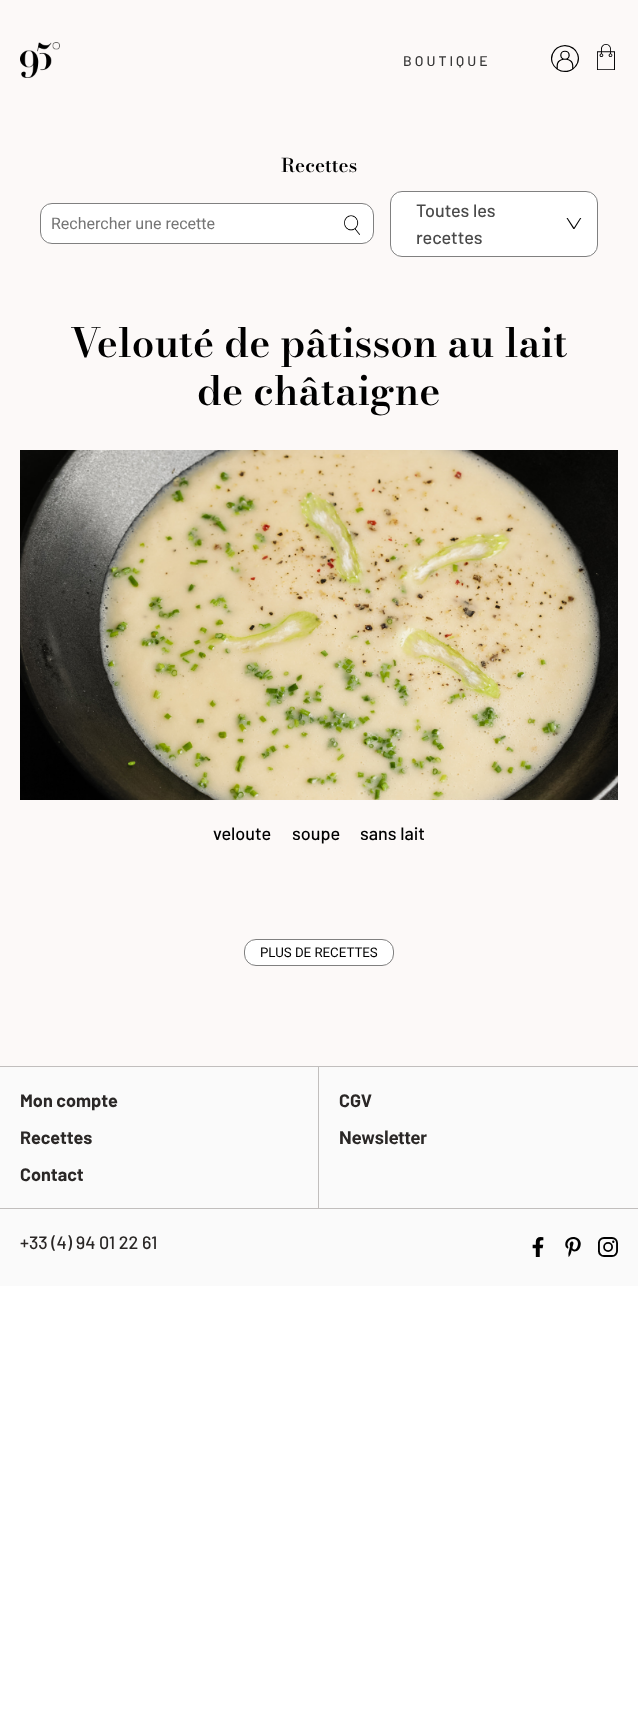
<!DOCTYPE html>
<meta charset="utf-8">
<style>body { margin: 0 } canvas { display: block }</style>
<canvas id="canvas" width="638" height="1725"></canvas>
<img id="img1" src="images/1.png" hidden>
<img id="img2" src="images/2.png" hidden>
<img id="img3" src="images/3.png" hidden>
<img id="img4" src="images/4.png" hidden>
<img id="img5" src="images/5.png" hidden>
<img id="img6" src="images/6.png" hidden>
<img id="img7" src="images/7.png" hidden>
<img id="img8" src="images/8.png" hidden>
<img id="img9" src="images/9.png" hidden>
<script>
window.onload = function () {
    const canvas = document.getElementById('canvas');
    const context = canvas.getContext('2d');
    context.miterLimit = 4;
    context.fontKerning = 'normal';

    context.fillStyle = 'rgb(255, 255, 255)';
    context.fillRect(0, 0, 638, 1725);
    context.fillStyle = 'rgb(252, 249, 248)';
    context.fillRect(0, 0, 638, 1066);
    context.drawImage(document.getElementById('img1'), 20, 42, 40, 36);
    context.drawImage(document.getElementById('img2'), 551, 45, 28, 27);
    context.drawImage(document.getElementById('img3'), 597, 44, 18, 26);
    context.fillStyle = 'rgb(255, 255, 255)';
    context.beginPath();
    context.roundRect(40.5, 203.5, 333, 40, 11.5);
    context.fill();
    context.strokeStyle = 'rgb(128, 128, 128)';
    context.stroke();
    context.drawImage(document.getElementById('img4'), 344, 215, 16, 20);
    context.beginPath();
    context.roundRect(390, 191, 208, 66, 12);
    context.fill();
    context.drawImage(document.getElementById('img5'), 566, 218, 16, 11);
    context.beginPath();
    context.roundRect(390.5, 191.5, 207, 65, 11.5);
    context.stroke();
    context.drawImage(document.getElementById('img6'), 20, 450, 598, 350);
    context.beginPath();
    context.roundRect(244.5, 939.5, 149, 26, 11.5);
    context.fill();
    context.stroke();
    context.fillStyle = 'rgb(250, 250, 250)';
    context.fillRect(0, 1067, 638, 219);
    context.fillStyle = 'rgb(193, 190, 189)';
    context.fillRect(0, 1066, 638, 1);
    context.fillRect(318, 1067, 1, 141);
    context.fillRect(0, 1208, 638, 1);
    context.drawImage(document.getElementById('img7'), 532, 1237, 12, 20);
    context.drawImage(document.getElementById('img8'), 565, 1237, 16, 20);
    context.drawImage(document.getElementById('img9'), 598, 1237, 20, 20);
    context.letterSpacing = '3px';
    context.font = '500 14px Barlow';
    context.fillStyle = 'rgb(54, 54, 54)';
    context.fillText('BOUTIQUE', 403, 66);
    context.letterSpacing = '0px';
    context.font = '600 19px Bodoni Moda';
    context.fillStyle = 'rgb(0, 0, 0)';
    context.fillText('Recettes', 281, 172);
    context.font = '16px Roboto';
    context.fillStyle = 'rgb(117, 117, 117)';
    context.fillText('Rechercher une recette', 51, 229);
    context.font = '500 18px Barlow';
    context.fillStyle = 'rgb(74, 74, 74)';
    context.fillText('Toutes les', 416, 217);
    context.fillText('recettes', 416, 244);
    context.font = '600 40px Bodoni Moda';
    context.fillStyle = 'rgb(0, 0, 0)';
    context.fillText('Velouté de pâtisson au lait', 70, 357);
    context.fillText('de châtaigne', 197, 405);
    context.font = '500 18px Barlow';
    context.fillText('veloute', 213, 840);
    context.fillText('soupe', 292, 840);
    context.fillText('sans lait', 360, 840);
    context.font = '13.25px Roboto';
    context.fillText('PLUS DE RECETTES', 260, 957);
    context.font = 'bold 18px Barlow';
    context.fillStyle = 'rgb(42, 39, 38)';
    context.fillText('Mon compte', 20, 1107);
    context.fillText('Recettes', 20, 1144);
    context.fillText('Contact', 20, 1181);
    context.fillText('CGV', 339, 1107);
    context.font = 'bold 18px Roboto';
    context.fillText('Newsletter', 339, 1144);
    context.font = '500 18px Barlow';
    context.fillText('+33 (4) 94 01 22 61', 20, 1249);
};
</script>
